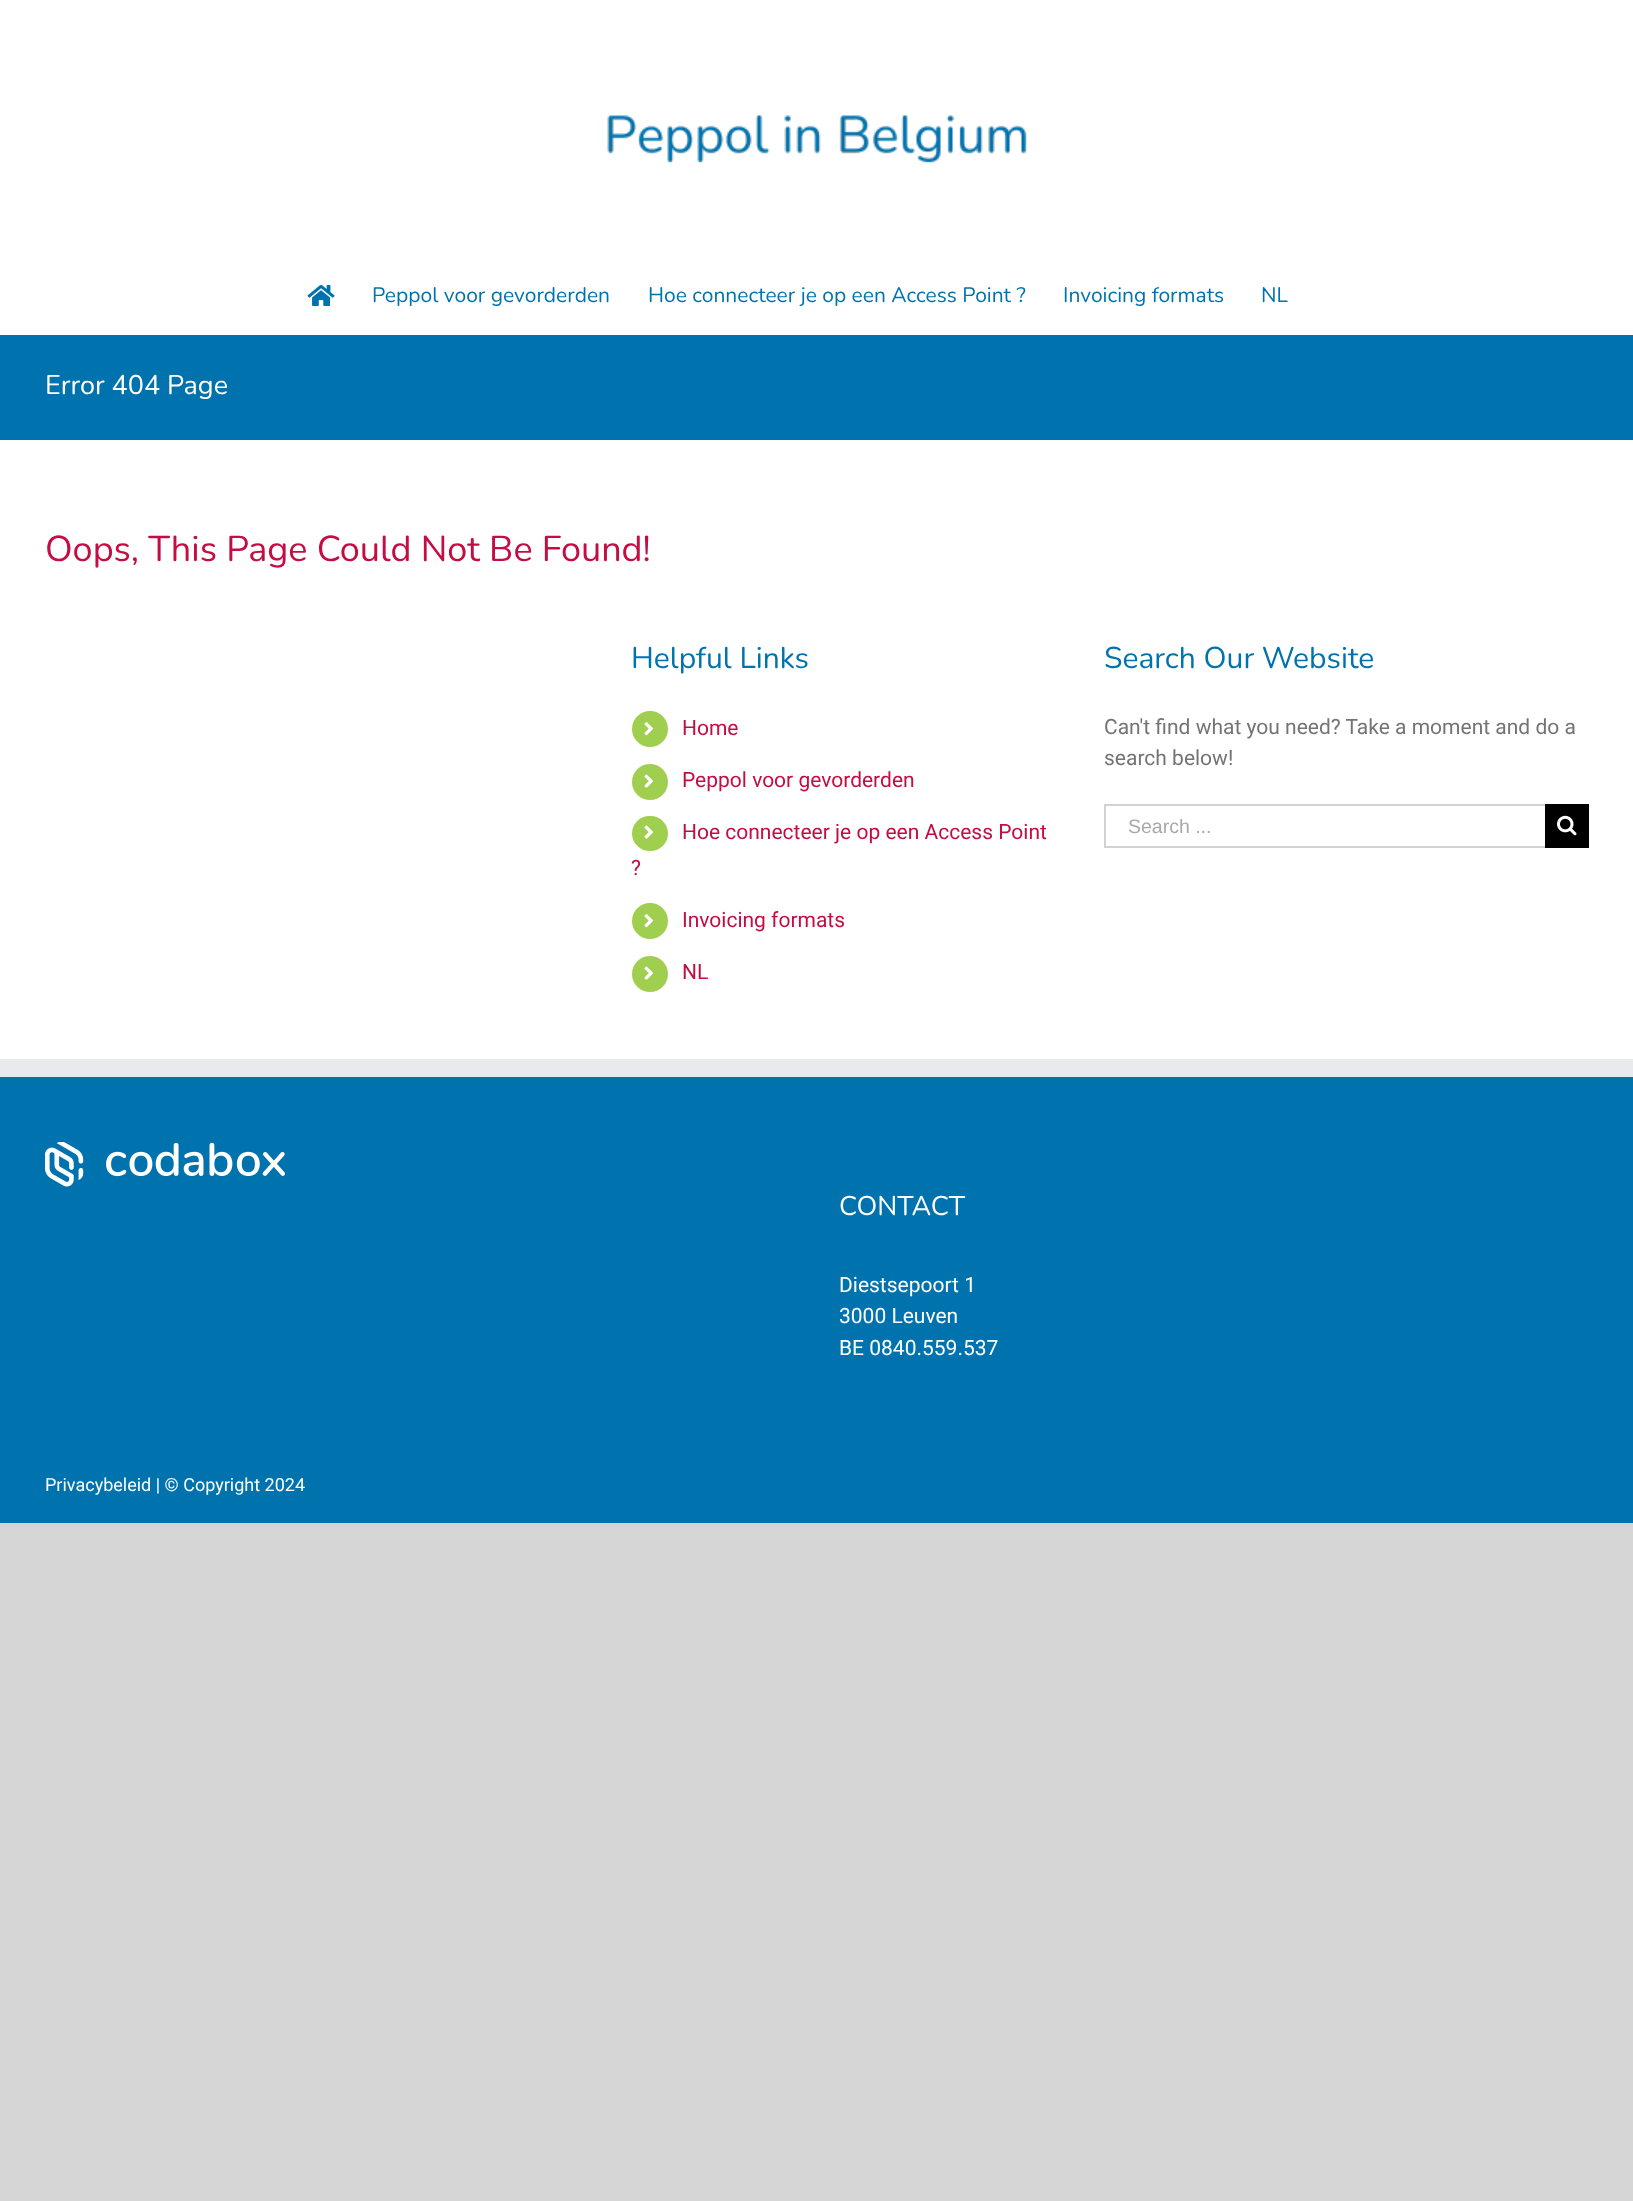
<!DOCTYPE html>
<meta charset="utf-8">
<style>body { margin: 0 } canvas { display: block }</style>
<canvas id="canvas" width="1633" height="2201"></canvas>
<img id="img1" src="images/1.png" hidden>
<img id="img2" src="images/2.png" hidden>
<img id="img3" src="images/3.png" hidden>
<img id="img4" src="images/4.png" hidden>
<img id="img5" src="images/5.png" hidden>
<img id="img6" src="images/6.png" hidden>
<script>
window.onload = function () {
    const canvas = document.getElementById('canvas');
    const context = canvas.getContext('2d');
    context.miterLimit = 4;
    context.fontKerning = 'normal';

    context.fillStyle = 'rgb(215, 214, 214)';
    context.fillRect(0, 0, 1633, 2201);
    context.fillStyle = 'rgb(255, 255, 255)';
    context.fillRect(0, 0, 1633, 1059);
    context.drawImage(document.getElementById('img1'), 607, 115, 420, 48);
    context.drawImage(document.getElementById('img2'), 307, 285, 28, 21);
    context.fillStyle = 'rgb(0, 115, 174)';
    context.fillRect(0, 335, 1633, 105);
    context.fillStyle = 'rgb(160, 206, 78)';
    context.beginPath();
    context.arc(650, 729, 18, 0, 2 * Math.PI);
    context.fill();
    context.drawImage(document.getElementById('img3'), 644, 722, 9, 14);
    context.beginPath();
    context.arc(650, 782, 18, 0, 2 * Math.PI);
    context.fill();
    context.drawImage(document.getElementById('img4'), 644, 774, 9, 14);
    context.beginPath();
    context.roundRect(632, 816, 36, 35, 17.5);
    context.fill();
    context.drawImage(document.getElementById('img4'), 644, 825, 9, 14);
    context.beginPath();
    context.arc(650, 921, 18, 0, 2 * Math.PI);
    context.fill();
    context.drawImage(document.getElementById('img3'), 644, 914, 9, 14);
    context.beginPath();
    context.arc(650, 974, 18, 0, 2 * Math.PI);
    context.fill();
    context.drawImage(document.getElementById('img4'), 644, 966, 9, 14);
    context.fillStyle = 'rgb(210, 210, 210)';
    context.fillRect(1104, 804, 441, 2);
    context.fillRect(1104, 846, 441, 2);
    context.fillRect(1104, 804, 2, 44);
    context.fillStyle = 'rgb(0, 0, 0)';
    context.fillRect(1545, 804, 44, 44);
    context.drawImage(document.getElementById('img5'), 1557, 815, 20, 21);
    context.fillStyle = 'rgb(0, 115, 174)';
    context.fillRect(0, 1077, 1633, 446);
    context.fillStyle = 'rgb(233, 234, 238)';
    context.fillRect(0, 1059, 1633, 18);
    context.drawImage(document.getElementById('img6'), 45, 1142, 240, 45);
    context.font = '200 21px Nunito';
    context.fillStyle = 'rgb(0, 115, 174)';
    context.fillText('Peppol voor gevorderden', 372, 302);
    context.fillText('Hoe connecteer je op een Access Point ?', 648, 302);
    context.fillText('Invoicing formats', 1063, 302);
    context.fillText('NL', 1261, 302);
    context.font = '200 27px Nunito';
    context.fillStyle = 'rgb(255, 255, 255)';
    context.fillText('Error 404 Page', 45, 394);
    context.font = '200 36px Nunito';
    context.fillStyle = 'rgb(196, 13, 66)';
    context.fillText('Oops, This Page Could Not Be Found!', 45, 561);
    context.font = '200 30px Nunito';
    context.fillStyle = 'rgb(0, 115, 174)';
    context.fillText('Helpful Links', 631, 668);
    context.font = '21px Roboto';
    context.fillStyle = 'rgb(196, 13, 66)';
    context.fillText('Home', 682, 735);
    context.fillText('Peppol voor gevorderden', 682, 787);
    context.fillText('Hoe connecteer je op een Access Point', 682, 839);
    context.fillText('?', 631, 875);
    context.fillText('Invoicing formats', 682, 927);
    context.fillText('NL', 682, 979);
    context.font = '200 30px Nunito';
    context.fillStyle = 'rgb(0, 115, 174)';
    context.fillText('Search Our Website', 1104, 668);
    context.font = '21px Roboto';
    context.fillStyle = 'rgb(116, 116, 116)';
    context.fillText('Can\'t find what you need? Take a moment and do a', 1104, 734);
    context.fillText('search below!', 1104, 765);
    context.font = '19.5px Liberation Sans';
    context.fillStyle = 'rgb(170, 169, 169)';
    context.fillText('Search ...', 1128, 833);
    context.font = '200 27px Nunito';
    context.fillStyle = 'rgb(255, 255, 255)';
    context.fillText('CONTACT', 839, 1215);
    context.font = '21px Roboto';
    context.fillText('Diestsepoort 1', 839, 1292);
    context.fillText('3000 Leuven', 839, 1323);
    context.fillText('BE 0840.559.537', 839, 1355);
    context.font = '18px Roboto';
    context.fillText('Privacybeleid | © Copyright 2024', 45, 1491);
};
</script>
